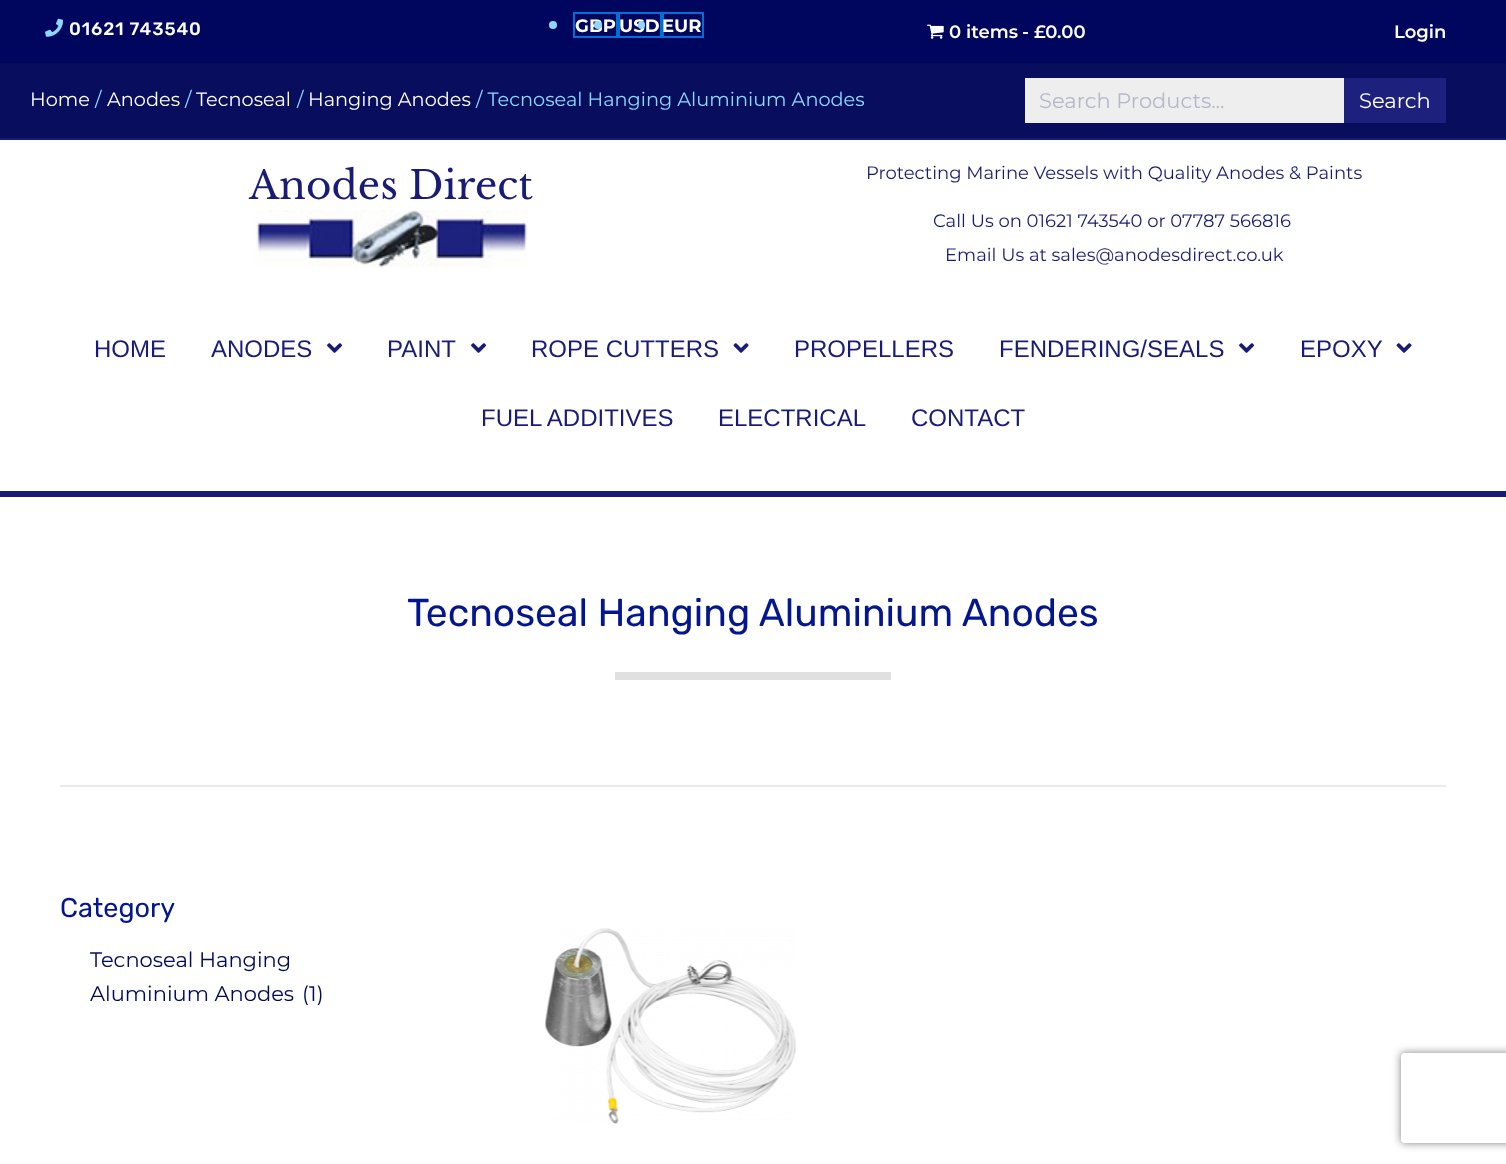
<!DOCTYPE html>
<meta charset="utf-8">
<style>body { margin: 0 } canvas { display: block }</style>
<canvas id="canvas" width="1506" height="1164"></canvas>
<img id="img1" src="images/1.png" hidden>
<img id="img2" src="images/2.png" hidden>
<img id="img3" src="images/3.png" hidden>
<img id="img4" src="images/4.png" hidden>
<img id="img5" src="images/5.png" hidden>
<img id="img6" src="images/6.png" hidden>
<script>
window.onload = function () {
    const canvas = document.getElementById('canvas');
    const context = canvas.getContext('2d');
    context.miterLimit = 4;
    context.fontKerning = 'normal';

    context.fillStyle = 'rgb(255, 255, 255)';
    context.fillRect(0, 0, 1506, 1164);
    context.fillStyle = 'rgb(0, 6, 94)';
    context.fillRect(0, 0, 1506, 63);
    context.drawImage(document.getElementById('img1'), 45, 18, 18, 19);
    context.fillStyle = 'rgb(142, 215, 255)';
    context.beginPath();
    context.arc(553, 25, 4, 0, 2 * Math.PI);
    context.fill();
    context.strokeStyle = 'rgb(0, 112, 213)';
    context.lineWidth = 2;
    context.strokeRect(574, 13, 43, 24);
    context.strokeRect(619, 13, 42, 24);
    context.strokeRect(663, 13, 40, 24);
    context.drawImage(document.getElementById('img2'), 927, 24, 17, 15);
    context.fillStyle = 'rgb(8, 14, 93)';
    context.fillRect(0, 63, 1506, 75);
    context.fillStyle = 'rgb(238, 238, 238)';
    context.fillRect(1025, 78, 319, 45);
    context.fillStyle = 'rgb(29, 33, 125)';
    context.fillRect(1344, 78, 102, 45);
    context.fillStyle = 'rgb(25, 28, 119)';
    context.fillRect(0, 138, 1506, 2);
    context.fillRect(0, 491, 1506, 6);
    context.drawImage(document.getElementById('img3'), 255, 210, 273, 58);
    context.drawImage(document.getElementById('img4'), 327, 343, 15, 10);
    context.drawImage(document.getElementById('img4'), 471, 343, 15, 10);
    context.drawImage(document.getElementById('img5'), 733, 343, 16, 10);
    context.drawImage(document.getElementById('img4'), 1239, 343, 15, 10);
    context.drawImage(document.getElementById('img5'), 1396, 343, 16, 10);
    context.fillStyle = 'rgb(224, 224, 224)';
    context.fillRect(615, 672, 276, 8);
    context.fillStyle = 'rgb(234, 234, 234)';
    context.fillRect(60, 785, 1386, 2);
    context.drawImage(document.getElementById('img6'), 545, 928, 251, 196);
    context.save();
    context.beginPath();
    context.moveTo(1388, 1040);
    context.lineTo(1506, 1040);
    context.lineTo(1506, 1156);
    context.lineTo(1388, 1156);
    context.closePath();
    context.moveTo(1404, 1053);
    context.lineTo(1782, 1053);
    context.bezierCurveTo(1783.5, 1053, 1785, 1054.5, 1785, 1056);
    context.lineTo(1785, 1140);
    context.bezierCurveTo(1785, 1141.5, 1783.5, 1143, 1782, 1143);
    context.lineTo(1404, 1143);
    context.bezierCurveTo(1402.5, 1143, 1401, 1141.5, 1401, 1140);
    context.lineTo(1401, 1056);
    context.bezierCurveTo(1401, 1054.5, 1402.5, 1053, 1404, 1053);
    context.closePath();
    context.clip('evenodd');
    context.fillStyle = 'rgb(128, 128, 128)';
    context.filter = 'blur(4px)';
    context.beginPath();
    context.roundRect(1401, 1053, 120, 90, 3);
    context.fill();
    context.filter = 'none';
    context.restore();
    context.letterSpacing = '0.9px';
    context.font = '500 18px Rubik';
    context.fillStyle = 'rgb(255, 255, 255)';
    context.fillText('01621 743540', 69, 35);
    context.letterSpacing = '0px';
    context.font = 'bold 18px Montserrat';
    context.fillText('GBP', 575, 32);
    context.fillStyle = 'rgb(142, 215, 255)';
    context.beginPath();
    context.arc(598, 25, 4, 0, 2 * Math.PI);
    context.fill();
    context.fillStyle = 'rgb(255, 255, 255)';
    context.fillText('USD', 619, 32);
    context.fillStyle = 'rgb(142, 215, 255)';
    context.beginPath();
    context.roundRect(638, 21, 7, 8, 3.5);
    context.fill();
    context.fillStyle = 'rgb(255, 255, 255)';
    context.fillText('EUR', 662, 32);
    context.font = '600 18px Montserrat';
    context.fillText('0 items', 949, 38);
    context.fillText('-', 1022, 38);
    context.fillText('£0.00', 1034, 38);
    context.fillText('Login', 1394, 38);
    context.font = '19.3px Montserrat';
    context.fillText('Home', 30, 106);
    context.fillStyle = 'rgb(142, 215, 255)';
    context.fillText('/', 95, 106);
    context.fillStyle = 'rgb(255, 255, 255)';
    context.fillText('Anodes', 107, 106);
    context.fillStyle = 'rgb(142, 215, 255)';
    context.fillText('/', 185, 106);
    context.fillStyle = 'rgb(255, 255, 255)';
    context.fillText('Tecnoseal', 196, 106);
    context.fillStyle = 'rgb(142, 215, 255)';
    context.fillText('/', 297, 106);
    context.fillStyle = 'rgb(255, 255, 255)';
    context.fillText('Hanging Anodes', 308, 106);
    context.fillStyle = 'rgb(142, 215, 255)';
    context.fillText('/ Tecnoseal Hanging Aluminium Anodes', 476, 106);
    context.font = '21px Montserrat';
    context.fillStyle = 'rgb(181, 183, 202)';
    context.fillText('Search Products...', 1039, 108);
    context.fillStyle = 'rgb(255, 255, 255)';
    context.fillText('Search', 1359, 108);
    context.font = '39px Libre Baskerville';
    context.fillStyle = 'rgb(25, 28, 119)';
    context.fillText('Anodes Direct', 249, 199);
    context.font = '18px Montserrat';
    context.fillText('Protecting Marine Vessels with Quality Anodes & Paints', 866, 179);
    context.fillText('Call Us on 01621 743540 or 07787 566816', 933, 227);
    context.fillText('Email Us at sales@anodesdirect.co.uk', 945, 261);
    context.font = '24px Liberation Sans';
    context.fillText('HOME', 94, 357);
    context.fillText('ANODES', 211, 357);
    context.fillText('PAINT', 387, 357);
    context.fillText('ROPE CUTTERS', 531, 357);
    context.fillText('PROPELLERS', 794, 357);
    context.fillText('FENDERING/SEALS', 999, 357);
    context.fillText('EPOXY', 1300, 357);
    context.fillText('FUEL ADDITIVES', 481, 426);
    context.fillText('ELECTRICAL', 718, 426);
    context.fillText('CONTACT', 911, 426);
    context.font = '39px Rubik';
    context.fillStyle = 'rgb(3, 22, 143)';
    context.fillText('Tecnoseal Hanging Aluminium Anodes', 407, 626);
    context.font = '27px Rubik';
    context.fillText('Category', 60, 917);
    context.font = '21px Montserrat';
    context.fillStyle = 'rgb(0, 10, 89)';
    context.fillText('Tecnoseal Hanging', 90, 967);
    context.fillText('Aluminium Anodes', 90, 1001);
    context.fillText('(1)', 302, 1001);
};
</script>
